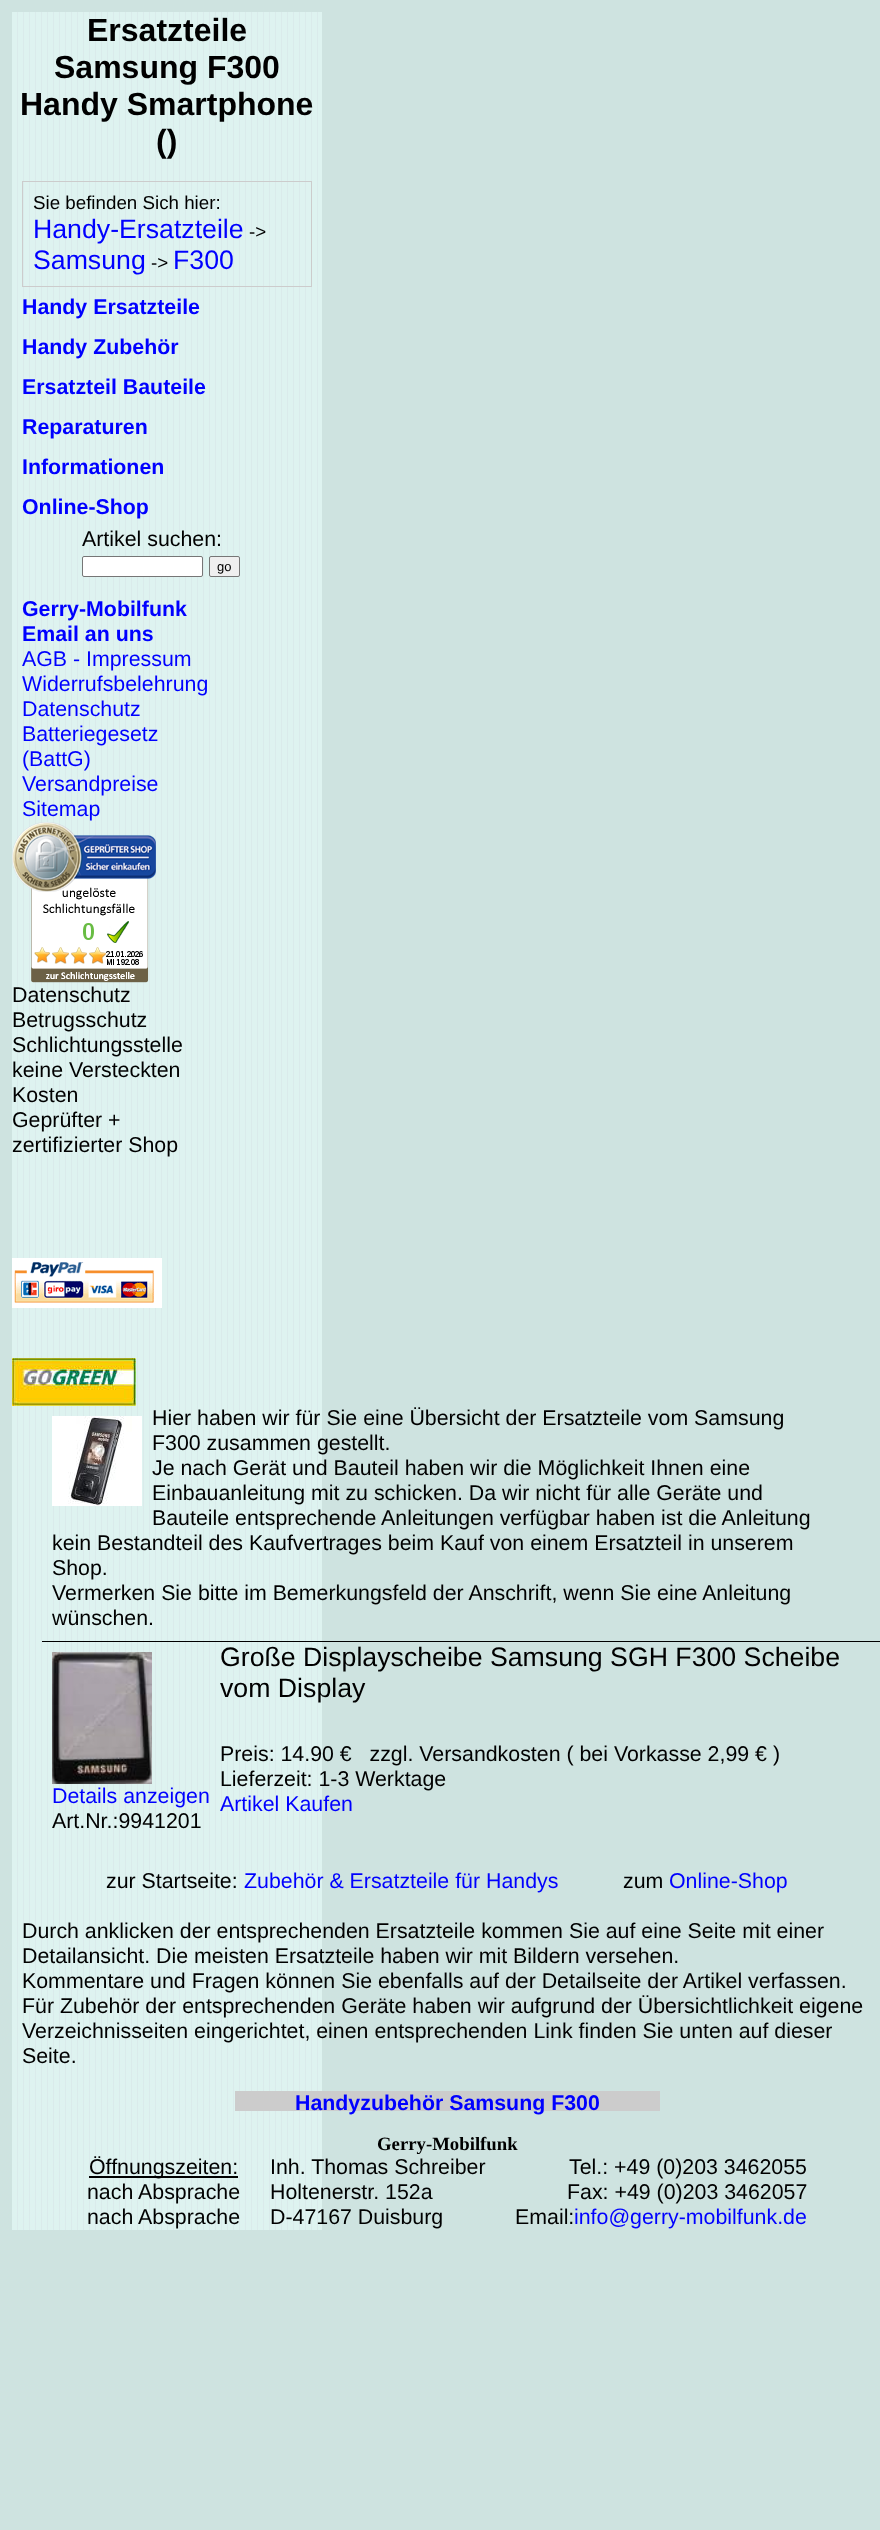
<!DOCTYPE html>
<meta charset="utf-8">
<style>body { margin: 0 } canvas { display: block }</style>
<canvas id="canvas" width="880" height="2530"></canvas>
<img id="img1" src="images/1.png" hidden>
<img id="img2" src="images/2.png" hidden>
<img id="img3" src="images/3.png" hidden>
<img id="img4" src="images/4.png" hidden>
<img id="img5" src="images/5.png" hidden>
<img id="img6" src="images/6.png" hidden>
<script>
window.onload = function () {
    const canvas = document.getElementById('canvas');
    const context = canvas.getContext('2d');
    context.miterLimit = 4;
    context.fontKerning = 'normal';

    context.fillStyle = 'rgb(206, 227, 224)';
    context.fillRect(0, 0, 880, 2530);
    context.drawImage(document.getElementById('img1'), 12, 12, 310, 2218);
    context.strokeStyle = 'rgb(204, 204, 204)';
    context.strokeRect(22.5, 181.5, 289, 105);
    context.fillStyle = 'rgb(255, 255, 255)';
    context.beginPath();
    context.roundRect(82.5, 556.5, 120, 20, 1.5);
    context.fill();
    context.strokeStyle = 'rgb(118, 118, 118)';
    context.stroke();
    context.fillStyle = 'rgb(239, 239, 239)';
    context.beginPath();
    context.roundRect(209.5, 556.5, 30, 20, 1.5);
    context.fill();
    context.stroke();
    context.drawImage(document.getElementById('img2'), 12, 822, 144, 161);
    context.drawImage(document.getElementById('img3'), 12, 1258, 150, 50);
    context.drawImage(document.getElementById('img4'), 12, 1358, 124, 48);
    context.drawImage(document.getElementById('img5'), 52, 1416, 90, 90);
    context.fillStyle = 'rgb(0, 0, 0)';
    context.fillRect(42, 1641, 838, 1);
    context.drawImage(document.getElementById('img6'), 52, 1652, 100, 132);
    context.fillStyle = 'rgb(204, 204, 204)';
    context.fillRect(235, 2091, 425, 20);
    context.fillStyle = 'rgb(0, 0, 0)';
    context.fillRect(89, 2176, 149, 2);
    context.font = 'bold 32px Liberation Sans';
    context.fillText('Ersatzteile', 87, 41);
    context.fillText('Samsung F300', 54, 78);
    context.fillText('Handy Smartphone', 20, 115);
    context.fillText('()', 156, 152);
    context.font = '18.75px Liberation Sans';
    context.fillText('Sie befinden Sich hier:', 33, 209);
    context.font = '26.7px Liberation Sans';
    context.fillStyle = 'rgb(0, 0, 255)';
    context.fillText('Handy-Ersatzteile', 33, 238);
    context.font = '18.75px Liberation Sans';
    context.fillStyle = 'rgb(0, 0, 0)';
    context.fillText('->', 249, 238);
    context.font = '26.7px Liberation Sans';
    context.fillStyle = 'rgb(0, 0, 255)';
    context.fillText('Samsung', 33, 269);
    context.font = '18.75px Liberation Sans';
    context.fillStyle = 'rgb(0, 0, 0)';
    context.fillText('->', 151, 269);
    context.font = '26.7px Liberation Sans';
    context.fillStyle = 'rgb(0, 0, 255)';
    context.fillText('F300', 173, 269);
    context.font = 'bold 21.35px Liberation Sans';
    context.fillText('Handy Ersatzteile', 22, 314);
    context.fillText('Handy Zubehör', 22, 354);
    context.fillText('Ersatzteil Bauteile', 22, 394);
    context.fillText('Reparaturen', 22, 434);
    context.fillText('Informationen', 22, 474);
    context.fillText('Online-Shop', 22, 514);
    context.font = '21.35px Liberation Sans';
    context.fillStyle = 'rgb(0, 0, 0)';
    context.fillText('Artikel suchen:', 82, 546);
    context.font = '13px Liberation Sans';
    context.fillText('go', 217, 571);
    context.font = 'bold 21.35px Liberation Sans';
    context.fillStyle = 'rgb(0, 0, 255)';
    context.fillText('Gerry-Mobilfunk', 22, 616);
    context.fillText('Email an uns', 22, 641);
    context.font = '21.35px Liberation Sans';
    context.fillText('AGB - Impressum', 22, 666);
    context.fillText('Widerrufsbelehrung', 22, 691);
    context.fillText('Datenschutz', 22, 716);
    context.fillText('Batteriegesetz', 22, 741);
    context.fillText('(BattG)', 22, 766);
    context.fillText('Versandpreise', 22, 791);
    context.fillText('Sitemap', 22, 816);
    context.fillStyle = 'rgb(0, 0, 0)';
    context.fillText('Datenschutz', 12, 1002);
    context.fillText('Betrugsschutz', 12, 1027);
    context.fillText('Schlichtungsstelle', 12, 1052);
    context.fillText('keine Versteckten', 12, 1077);
    context.fillText('Kosten', 12, 1102);
    context.fillText('Geprüfter +', 12, 1127);
    context.fillText('zertifizierter Shop', 12, 1152);
    context.fillText('Hier haben wir für Sie eine Übersicht der Ersatzteile vom Samsung', 152, 1425);
    context.fillText('F300 zusammen gestellt.', 152, 1450);
    context.fillText('Je nach Gerät und Bauteil haben wir die Möglichkeit Ihnen eine', 152, 1475);
    context.fillText('Einbauanleitung mit zu schicken. Da wir nicht für alle Geräte und', 152, 1500);
    context.fillText('Bauteile entsprechende Anleitungen verfügbar haben ist die Anleitung', 152, 1525);
    context.fillText('kein Bestandteil des Kaufvertrages beim Kauf von einem Ersatzteil in unserem', 52, 1550);
    context.fillText('Shop.', 52, 1575);
    context.fillText('Vermerken Sie bitte im Bemerkungsfeld der Anschrift, wenn Sie eine Anleitung', 52, 1600);
    context.fillText('wünschen.', 52, 1625);
    context.font = '26.7px Liberation Sans';
    context.fillText('Große Displayscheibe Samsung SGH F300 Scheibe', 220, 1666);
    context.fillText('vom Display', 220, 1697);
    context.font = '21.35px Liberation Sans';
    context.fillStyle = 'rgb(0, 0, 255)';
    context.fillText('Details anzeigen', 52, 1803);
    context.fillStyle = 'rgb(0, 0, 0)';
    context.fillText('Art.Nr.:9941201', 52, 1828);
    context.fillText('Preis: 14.90 €   zzgl. Versandkosten ( bei Vorkasse 2,99 € )', 220, 1761);
    context.fillText('Lieferzeit: 1-3 Werktage', 220, 1786);
    context.fillStyle = 'rgb(0, 0, 255)';
    context.fillText('Artikel Kaufen', 220, 1811);
    context.fillStyle = 'rgb(0, 0, 0)';
    context.fillText('zur Startseite:', 106, 1888);
    context.fillStyle = 'rgb(0, 0, 255)';
    context.fillText('Zubehör & Ersatzteile für Handys', 244, 1888);
    context.fillStyle = 'rgb(0, 0, 0)';
    context.fillText('zum', 623, 1888);
    context.fillStyle = 'rgb(0, 0, 255)';
    context.fillText('Online-Shop', 669, 1888);
    context.fillStyle = 'rgb(0, 0, 0)';
    context.fillText('Durch anklicken der entsprechenden Ersatzteile kommen Sie auf eine Seite mit einer', 22, 1938);
    context.fillText('Detailansicht. Die meisten Ersatzteile haben wir mit Bildern versehen.', 22, 1963);
    context.fillText('Kommentare und Fragen können Sie ebenfalls auf der Detailseite der Artikel verfassen.', 22, 1988);
    context.fillText('Für Zubehör der entsprechenden Geräte haben wir aufgrund der Übersichtlichkeit eigene', 22, 2013);
    context.fillText('Verzeichnisseiten eingerichtet, einen entsprechenden Link finden Sie unten auf dieser', 22, 2038);
    context.fillText('Seite.', 22, 2063);
    context.font = 'bold 21.35px Liberation Sans';
    context.fillStyle = 'rgb(0, 0, 255)';
    context.fillText('Handyzubehör Samsung F300', 295, 2110);
    context.font = 'bold 18.75px Liberation Serif';
    context.fillStyle = 'rgb(0, 0, 0)';
    context.fillText('Gerry-Mobilfunk', 377, 2150);
    context.font = '21.35px Liberation Sans';
    context.fillText('Öffnungszeiten:', 89, 2174);
    context.fillText('Inh. Thomas Schreiber', 270, 2174);
    context.fillText('Tel.: +49 (0)203 3462055', 569, 2174);
    context.fillText('nach Absprache', 87, 2199);
    context.fillText('Holtenerstr. 152a', 270, 2199);
    context.fillText('Fax: +49 (0)203 3462057', 567, 2199);
    context.fillText('nach Absprache', 87, 2224);
    context.fillText('D-47167 Duisburg', 270, 2224);
    context.fillText('Email:', 515, 2224);
    context.fillStyle = 'rgb(0, 0, 255)';
    context.fillText('info@gerry-mobilfunk.de', 574, 2224);
};
</script>
